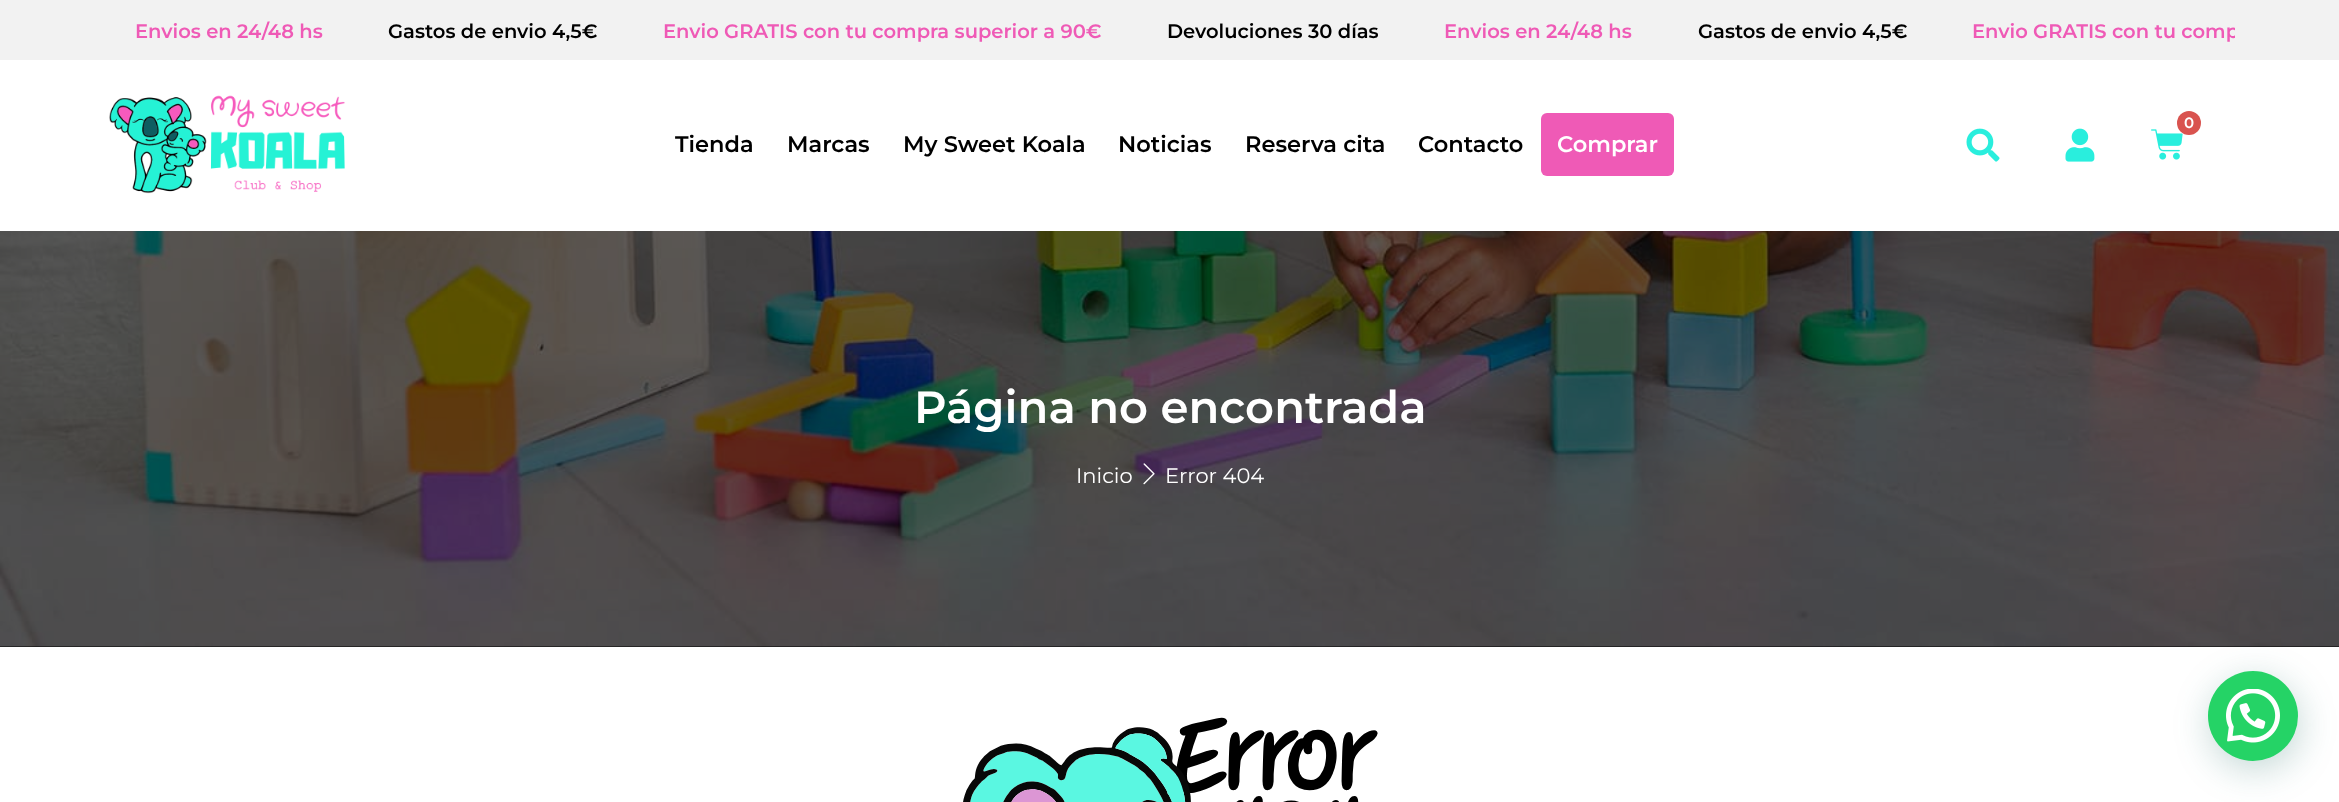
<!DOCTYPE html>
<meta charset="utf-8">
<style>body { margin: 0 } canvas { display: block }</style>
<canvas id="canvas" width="2339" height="802"></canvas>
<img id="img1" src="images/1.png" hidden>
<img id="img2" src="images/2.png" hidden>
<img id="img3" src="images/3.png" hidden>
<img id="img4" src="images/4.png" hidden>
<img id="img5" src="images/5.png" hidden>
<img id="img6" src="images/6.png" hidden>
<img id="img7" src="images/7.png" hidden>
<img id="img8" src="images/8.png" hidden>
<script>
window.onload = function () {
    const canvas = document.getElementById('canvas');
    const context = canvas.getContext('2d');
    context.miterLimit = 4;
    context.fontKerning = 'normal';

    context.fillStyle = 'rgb(255, 255, 255)';
    context.fillRect(0, 0, 2339, 802);
    context.fillStyle = 'rgb(242, 242, 242)';
    context.fillRect(0, 0, 2339, 60);
    context.drawImage(document.getElementById('img1'), 109, 95, 236, 99);
    context.drawImage(document.getElementById('img2'), 2151, 129, 32, 31);
    context.fillStyle = 'rgb(217, 83, 79)';
    context.beginPath();
    context.arc(2189, 123, 12, 0, 2 * Math.PI);
    context.fill();
    context.drawImage(document.getElementById('img3'), 1966, 128, 34, 34);
    context.drawImage(document.getElementById('img4'), 2065, 128, 30, 34);
    context.fillStyle = 'rgb(239, 90, 182)';
    context.beginPath();
    context.roundRect(1541, 113, 133, 63, 6);
    context.fill();
    context.fillStyle = 'rgb(0, 0, 0)';
    context.fillRect(0, 231, 2339, 416);
    context.drawImage(document.getElementById('img5'), 0, 231, 2339, 416);
    context.drawImage(document.getElementById('img6'), 1143, 463, 12, 22);
    context.drawImage(document.getElementById('img7'), 963, 717, 415, 85);
    context.fillStyle = 'rgba(7, 94, 84, 0.24)';
    context.filter = 'blur(18px)';
    context.beginPath();
    context.roundRect(2210, 680, 90, 90, 45);
    context.fill();
    context.filter = 'none';
    context.fillStyle = 'rgb(37, 211, 102)';
    context.beginPath();
    context.arc(2253, 716, 45, 0, 2 * Math.PI);
    context.fill();
    context.drawImage(document.getElementById('img8'), 2226, 689, 54, 54);
    context.font = '600 19.5px Montserrat';
    context.fillStyle = 'rgb(239, 90, 182)';
    context.fillText('Envios en 24/48 hs', 135, 38);
    context.fillStyle = 'rgb(0, 0, 0)';
    context.fillText('Gastos de envio 4,5€', 388, 38);
    context.fillStyle = 'rgb(239, 90, 182)';
    context.fillText('Envio GRATIS con tu compra superior a 90€', 663, 38);
    context.fillStyle = 'rgb(0, 0, 0)';
    context.fillText('Devoluciones 30 días', 1167, 38);
    context.fillStyle = 'rgb(239, 90, 182)';
    context.fillText('Envios en 24/48 hs', 1444, 38);
    context.fillStyle = 'rgb(0, 0, 0)';
    context.fillText('Gastos de envio 4,5€', 1698, 38);
    context.save();
    context.beginPath();
    context.rect(105, 15, 2130, 30);
    context.clip();
    context.fillStyle = 'rgb(239, 90, 182)';
    context.fillText('Envio GRATIS con tu comp', 1972, 38);
    context.restore();
    context.font = '600 15px Montserrat';
    context.fillStyle = 'rgb(255, 255, 255)';
    context.fillText('0', 2184, 128);
    context.font = '600 22.5px Montserrat';
    context.fillStyle = 'rgb(0, 0, 0)';
    context.fillText('Tienda', 675, 152);
    context.fillText('Marcas', 787, 152);
    context.fillText('My Sweet Koala', 903, 152);
    context.fillText('Noticias', 1118, 152);
    context.fillText('Reserva cita', 1245, 152);
    context.fillText('Contacto', 1418, 152);
    context.fillStyle = 'rgb(255, 255, 255)';
    context.fillText('Comprar', 1557, 152);
    context.font = '600 45px Montserrat';
    context.fillText('Página no encontrada', 914, 423);
    context.font = '21px Montserrat';
    context.fillText('Inicio', 1076, 483);
    context.fillText('Error 404', 1165, 483);
};
</script>
